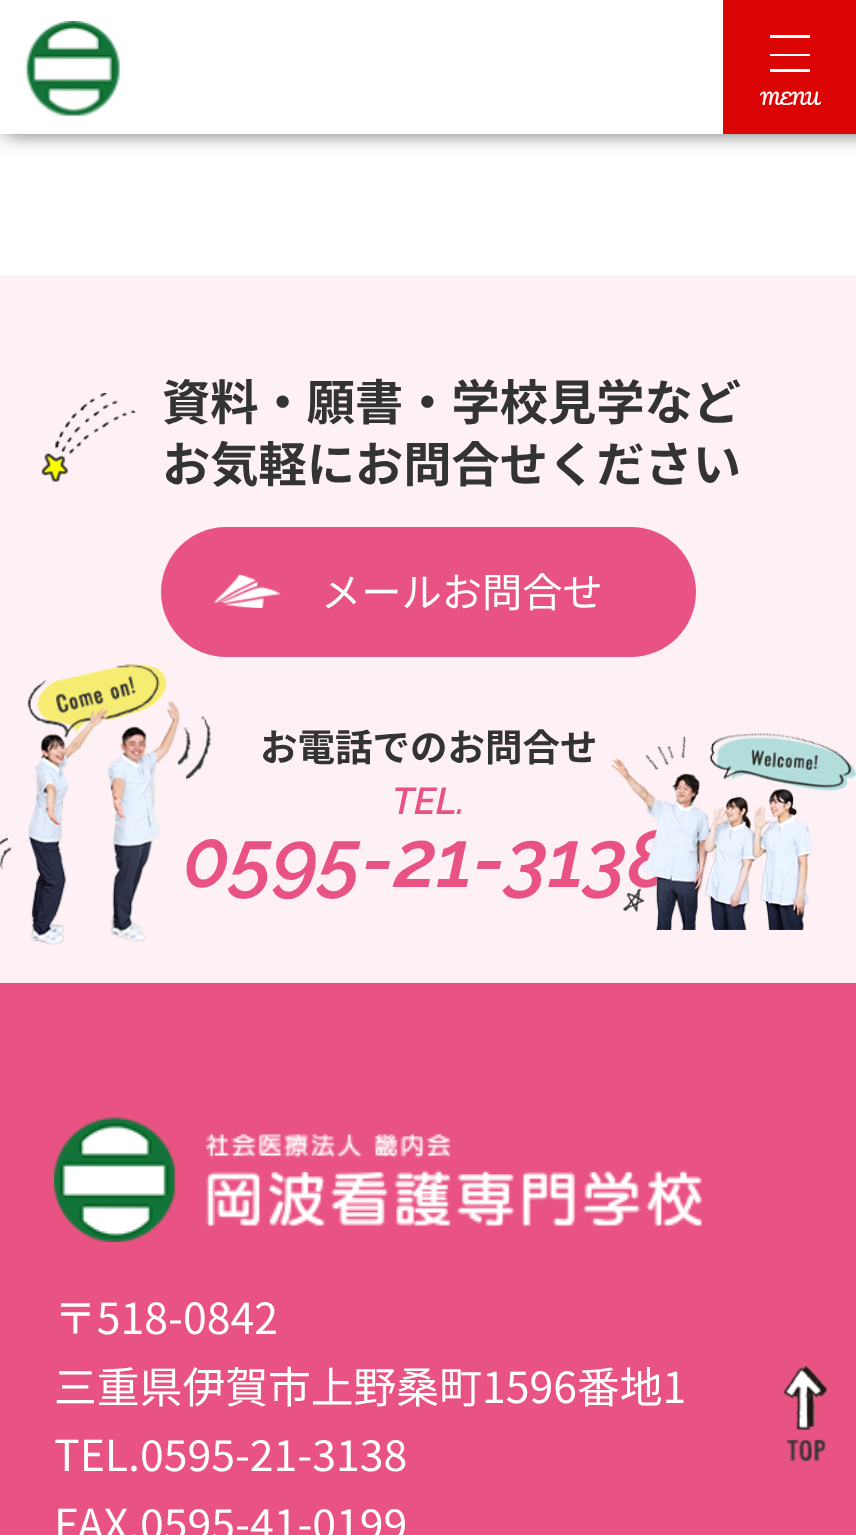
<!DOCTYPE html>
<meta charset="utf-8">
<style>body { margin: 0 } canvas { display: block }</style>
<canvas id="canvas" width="856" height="1535"></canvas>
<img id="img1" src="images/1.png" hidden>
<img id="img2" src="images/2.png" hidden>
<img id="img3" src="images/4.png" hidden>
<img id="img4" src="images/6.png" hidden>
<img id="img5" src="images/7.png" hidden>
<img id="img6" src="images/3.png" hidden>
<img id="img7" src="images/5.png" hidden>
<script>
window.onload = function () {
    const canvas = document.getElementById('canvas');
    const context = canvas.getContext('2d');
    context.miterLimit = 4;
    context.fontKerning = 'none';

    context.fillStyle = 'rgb(255, 255, 255)';
    context.fillRect(0, 0, 856, 1535);
    context.fillStyle = 'rgba(0, 0, 0, 0.75)';
    context.filter = 'blur(11px)';
    context.beginPath();
    context.rect(5, 6, 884, 125);
    context.fill();
    context.filter = 'none';
    context.fillStyle = 'rgb(255, 255, 255)';
    context.fillRect(0, 0, 723, 134);
    context.drawImage(document.getElementById('img1'), 25, 21, 95, 95);
    context.fillStyle = 'rgb(220, 5, 5)';
    context.fillRect(723, 0, 133, 134);
    context.fillStyle = 'rgb(255, 255, 255)';
    context.fillRect(770, 35, 40, 3);
    context.fillRect(770, 54, 40, 2);
    context.fillRect(770, 69, 40, 3);
    context.fillStyle = 'rgb(253, 241, 245)';
    context.fillRect(0, 275, 856, 708);
    context.drawImage(document.getElementById('img2'), 42, 393, 93, 89);
    context.fillStyle = 'rgb(233, 83, 131)';
    context.beginPath();
    context.roundRect(161, 527, 535, 130, 65);
    context.fill();
    context.drawImage(document.getElementById('img3'), 214, 574, 67, 34);
    context.fillRect(0, 983, 856, 552);
    context.drawImage(document.getElementById('img4'), 54, 1117, 648, 125);
    context.drawImage(document.getElementById('img5'), 784, 1366, 43, 95);
    context.font = '16px Pacifico';
    context.fillStyle = 'rgb(255, 255, 255)';
    context.fillText('MENU', 760, 105);
    context.font = 'bold 48.25px Noto Sans JP';
    context.fillStyle = 'rgb(51, 51, 51)';
    context.fillText('資料・願書・学校見学など', 162, 420);
    context.fillText('お気軽にお問合せください', 162, 482);
    context.font = '40.25px Noto Sans JP';
    context.fillStyle = 'rgb(255, 255, 255)';
    context.fillText('メールお問合せ', 321, 607);
    context.font = 'bold 37.5px Noto Sans JP';
    context.fillStyle = 'rgb(51, 51, 51)';
    context.fillText('お電話でのお問合せ', 260, 761);
    context.font = 'italic 600 37.5px Raleway';
    context.fillStyle = 'rgb(233, 83, 131)';
    context.fillText('TEL.', 392, 814);
    context.font = 'italic 600 80.25px Raleway';
    context.fillText('0595-21-3138', 183, 887);
    context.drawImage(document.getElementById('img6'), 0, 664, 211, 281);
    context.drawImage(document.getElementById('img7'), 611, 733, 245, 197);
    context.font = '42.8px Noto Sans JP';
    context.fillStyle = 'rgb(255, 255, 255)';
    context.fillText('〒518-0842', 54, 1334);
    context.fillText('三重県伊賀市上野桑町1596番地1', 54, 1403);
    context.fillText('TEL.0595-21-3138', 54, 1471);
    context.fillText('FAX.0595-41-0199', 54, 1540);
};
</script>
